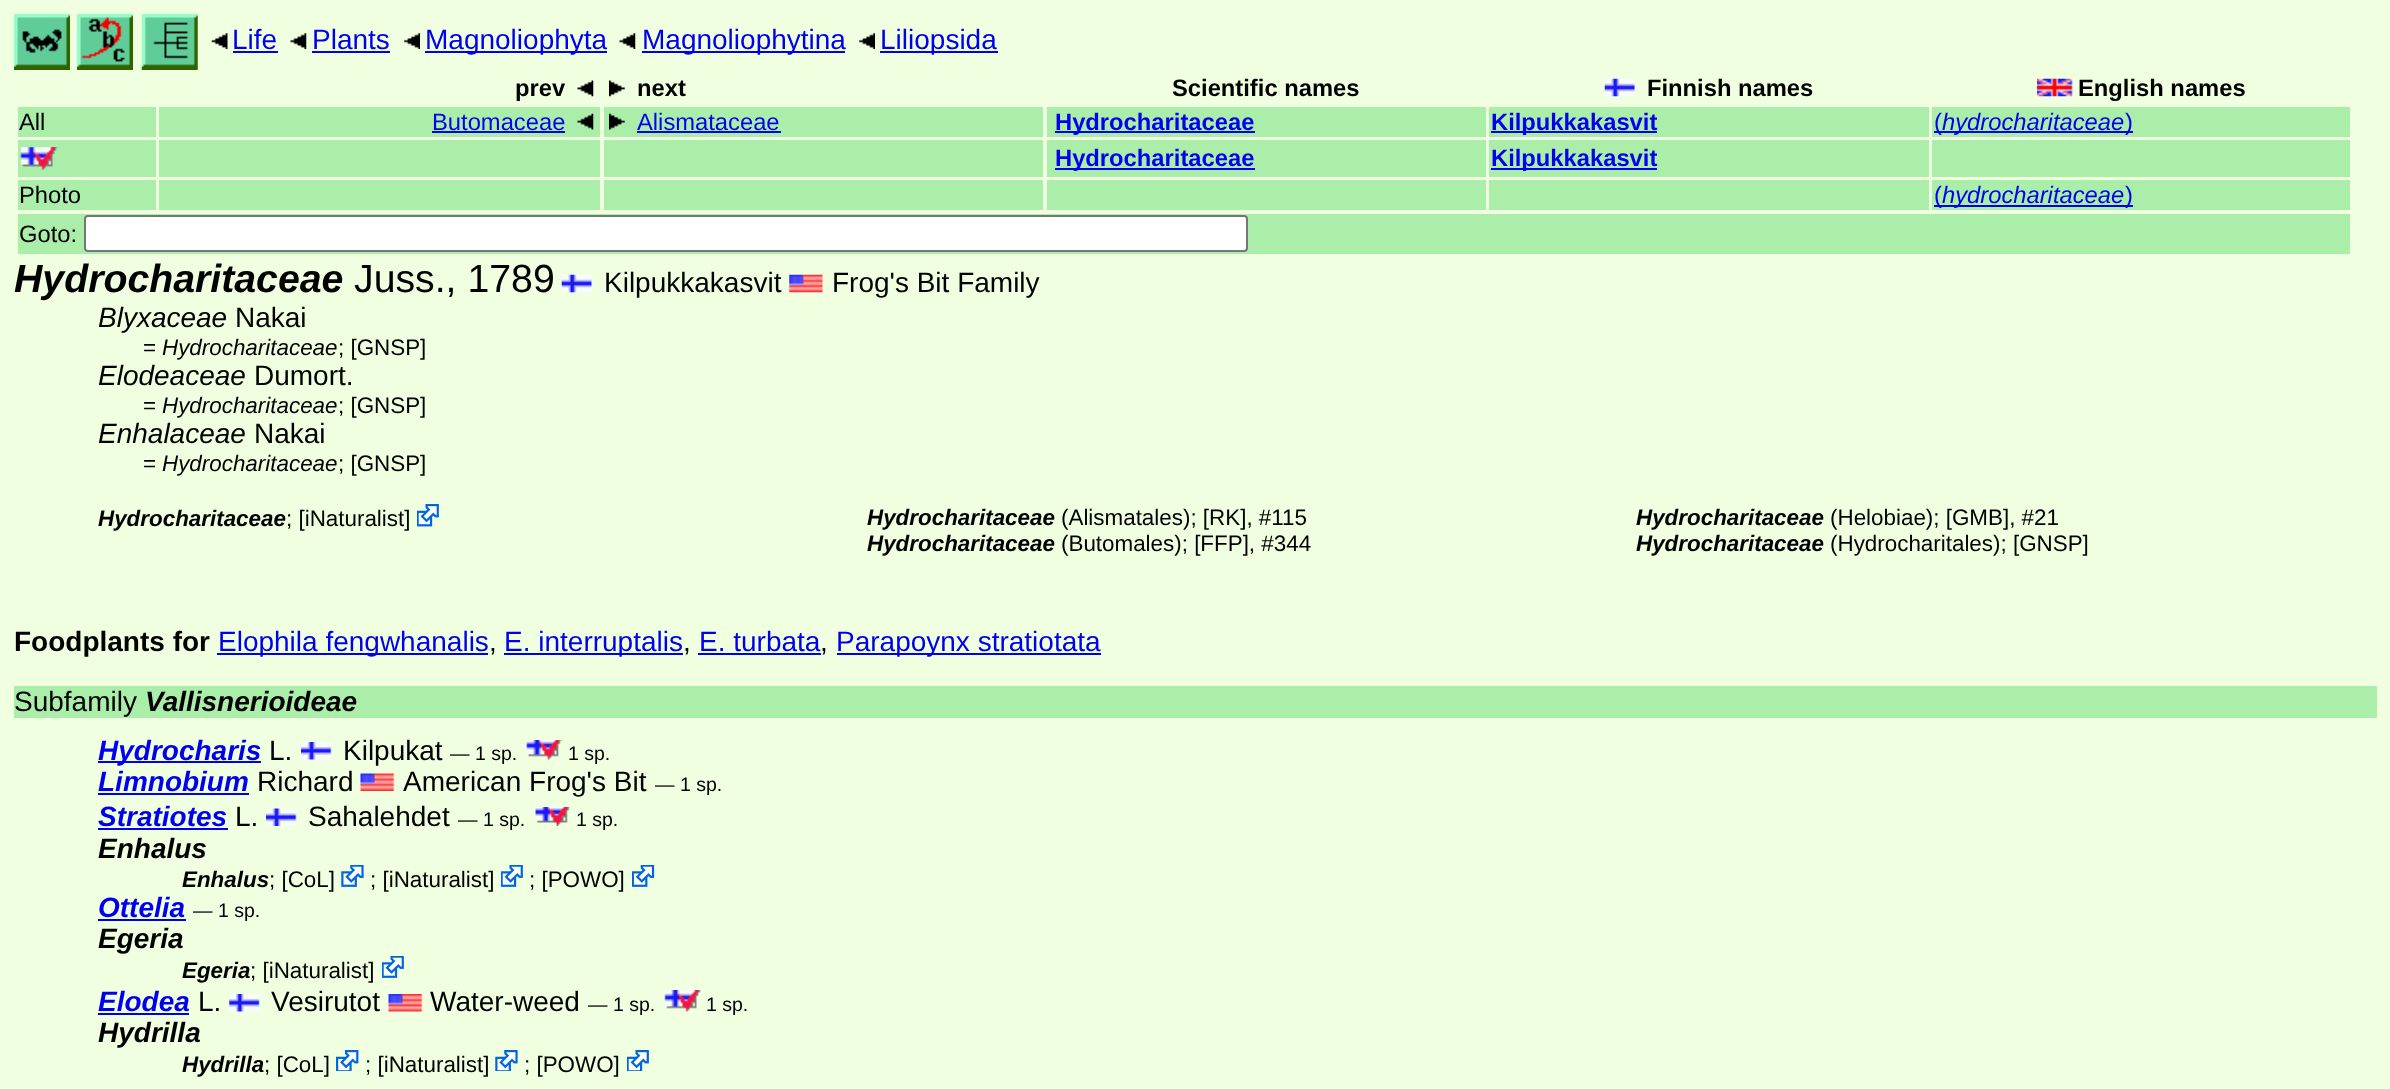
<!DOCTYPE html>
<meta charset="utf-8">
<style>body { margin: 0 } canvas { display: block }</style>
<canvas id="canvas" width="2390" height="1089"></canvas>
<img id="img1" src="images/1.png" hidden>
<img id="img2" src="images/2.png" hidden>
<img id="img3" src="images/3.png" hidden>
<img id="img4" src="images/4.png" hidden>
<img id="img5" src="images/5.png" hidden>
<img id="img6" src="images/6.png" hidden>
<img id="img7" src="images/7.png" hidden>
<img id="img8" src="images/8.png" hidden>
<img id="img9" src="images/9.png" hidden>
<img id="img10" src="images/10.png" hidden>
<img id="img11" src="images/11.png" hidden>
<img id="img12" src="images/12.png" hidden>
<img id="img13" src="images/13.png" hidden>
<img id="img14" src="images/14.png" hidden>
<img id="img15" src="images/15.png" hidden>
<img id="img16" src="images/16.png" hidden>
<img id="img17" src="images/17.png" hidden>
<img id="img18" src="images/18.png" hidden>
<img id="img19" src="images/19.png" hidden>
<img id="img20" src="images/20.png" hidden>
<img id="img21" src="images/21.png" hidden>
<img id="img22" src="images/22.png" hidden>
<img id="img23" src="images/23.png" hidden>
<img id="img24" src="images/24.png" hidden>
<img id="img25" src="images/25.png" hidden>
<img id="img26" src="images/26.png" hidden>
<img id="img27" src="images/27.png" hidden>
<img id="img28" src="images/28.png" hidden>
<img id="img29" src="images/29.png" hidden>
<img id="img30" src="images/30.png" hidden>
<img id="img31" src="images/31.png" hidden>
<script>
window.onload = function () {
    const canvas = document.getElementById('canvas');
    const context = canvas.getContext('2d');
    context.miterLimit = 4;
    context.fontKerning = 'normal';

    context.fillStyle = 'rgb(240, 255, 224)';
    context.fillRect(0, 0, 2390, 1089);
    context.drawImage(document.getElementById('img1'), 14, 14, 56, 56);
    context.drawImage(document.getElementById('img2'), 77, 14, 56, 56);
    context.drawImage(document.getElementById('img3'), 141, 14, 57, 56);
    context.drawImage(document.getElementById('img4'), 211, 33, 17, 16);
    context.fillStyle = 'rgb(0, 0, 238)';
    context.fillRect(233, 51, 45, 2);
    context.drawImage(document.getElementById('img5'), 290, 33, 17, 16);
    context.fillRect(312, 51, 78, 2);
    context.drawImage(document.getElementById('img6'), 404, 33, 16, 16);
    context.fillRect(425, 51, 182, 2);
    context.drawImage(document.getElementById('img7'), 619, 33, 17, 16);
    context.fillRect(642, 51, 203, 2);
    context.drawImage(document.getElementById('img6'), 859, 33, 16, 16);
    context.fillRect(880, 51, 118, 2);
    context.drawImage(document.getElementById('img8'), 577, 80, 17, 17);
    context.drawImage(document.getElementById('img9'), 609, 80, 16, 17);
    context.drawImage(document.getElementById('img10'), 1604, 78, 31, 19);
    context.drawImage(document.getElementById('img11'), 2037, 78, 36, 19);
    context.fillStyle = 'rgb(170, 238, 170)';
    context.fillRect(18, 107, 138, 30);
    context.fillRect(159, 107, 441, 30);
    context.fillStyle = 'rgb(0, 0, 238)';
    context.fillRect(432, 131, 133, 2);
    context.drawImage(document.getElementById('img12'), 577, 113, 17, 17);
    context.fillStyle = 'rgb(170, 238, 170)';
    context.fillRect(604, 107, 439, 30);
    context.drawImage(document.getElementById('img13'), 609, 113, 16, 17);
    context.fillStyle = 'rgb(0, 0, 238)';
    context.fillRect(637, 131, 144, 2);
    context.fillStyle = 'rgb(170, 238, 170)';
    context.fillRect(1047, 107, 439, 30);
    context.fillStyle = 'rgb(0, 0, 238)';
    context.fillRect(1055, 131, 200, 2);
    context.fillStyle = 'rgb(170, 238, 170)';
    context.fillRect(1489, 107, 440, 30);
    context.fillStyle = 'rgb(0, 0, 238)';
    context.fillRect(1491, 131, 166, 2);
    context.fillStyle = 'rgb(170, 238, 170)';
    context.fillRect(1932, 107, 418, 30);
    context.fillStyle = 'rgb(0, 0, 238)';
    context.fillRect(1934, 131, 199, 2);
    context.fillStyle = 'rgb(170, 238, 170)';
    context.fillRect(18, 140, 138, 37);
    context.drawImage(document.getElementById('img14'), 20, 147, 38, 23);
    context.fillRect(159, 140, 441, 37);
    context.fillRect(604, 140, 439, 37);
    context.fillRect(1047, 140, 439, 37);
    context.fillStyle = 'rgb(0, 0, 238)';
    context.fillRect(1055, 168, 200, 2);
    context.fillStyle = 'rgb(170, 238, 170)';
    context.fillRect(1489, 140, 440, 37);
    context.fillStyle = 'rgb(0, 0, 238)';
    context.fillRect(1491, 168, 166, 2);
    context.fillStyle = 'rgb(170, 238, 170)';
    context.fillRect(1932, 140, 418, 37);
    context.fillRect(18, 180, 138, 30);
    context.fillRect(159, 180, 441, 30);
    context.fillRect(604, 180, 439, 30);
    context.fillRect(1047, 180, 439, 30);
    context.fillRect(1489, 180, 440, 30);
    context.fillRect(1932, 180, 418, 30);
    context.fillStyle = 'rgb(0, 0, 238)';
    context.fillRect(1934, 205, 199, 2);
    context.fillStyle = 'rgb(170, 238, 170)';
    context.fillRect(18, 214, 2332, 40);
    context.fillStyle = 'rgb(255, 255, 255)';
    context.beginPath();
    context.roundRect(85, 216, 1162, 35, 3);
    context.fill();
    context.strokeStyle = 'rgb(118, 118, 118)';
    context.lineWidth = 2;
    context.stroke();
    context.drawImage(document.getElementById('img15'), 561, 274, 31, 19);
    context.drawImage(document.getElementById('img16'), 789, 274, 34, 19);
    context.drawImage(document.getElementById('img17'), 417, 504, 22, 23);
    context.fillStyle = 'rgb(0, 0, 238)';
    context.fillRect(217, 653, 271, 2);
    context.fillRect(504, 653, 179, 2);
    context.fillRect(698, 653, 123, 2);
    context.fillRect(837, 653, 264, 2);
    context.fillStyle = 'rgb(170, 238, 170)';
    context.fillRect(14, 686, 2363, 32);
    context.fillStyle = 'rgb(0, 0, 238)';
    context.fillRect(98, 761, 163, 2);
    context.drawImage(document.getElementById('img18'), 301, 742, 31, 18);
    context.drawImage(document.getElementById('img19'), 526, 740, 37, 20);
    context.fillRect(98, 793, 151, 2);
    context.drawImage(document.getElementById('img20'), 360, 773, 35, 18);
    context.fillRect(98, 828, 130, 2);
    context.drawImage(document.getElementById('img21'), 266, 808, 31, 18);
    context.drawImage(document.getElementById('img22'), 535, 807, 36, 19);
    context.drawImage(document.getElementById('img23'), 341, 865, 23, 22);
    context.drawImage(document.getElementById('img24'), 501, 865, 22, 22);
    context.drawImage(document.getElementById('img25'), 632, 865, 23, 22);
    context.fillRect(98, 919, 88, 2);
    context.drawImage(document.getElementById('img24'), 382, 956, 22, 22);
    context.fillRect(98, 1013, 91, 2);
    context.drawImage(document.getElementById('img26'), 229, 994, 31, 18);
    context.drawImage(document.getElementById('img27'), 388, 994, 35, 18);
    context.drawImage(document.getElementById('img28'), 664, 990, 37, 22);
    context.drawImage(document.getElementById('img29'), 336, 1050, 23, 21);
    context.drawImage(document.getElementById('img30'), 495, 1050, 23, 21);
    context.drawImage(document.getElementById('img31'), 627, 1050, 22, 21);
    context.font = '28px Liberation Sans';
    context.fillText('Life', 232, 49);
    context.fillText('Plants', 312, 49);
    context.fillText('Magnoliophyta', 425, 49);
    context.fillText('Magnoliophytina', 642, 49);
    context.fillText('Liliopsida', 880, 49);
    context.font = 'bold 23.75px Liberation Sans';
    context.fillStyle = 'rgb(0, 0, 0)';
    context.fillText('prev', 515, 96);
    context.fillText('next', 637, 96);
    context.fillText('Scientific names', 1172, 96);
    context.fillText('Finnish names', 1647, 96);
    context.fillText('English names', 2078, 96);
    context.font = '23.75px Liberation Sans';
    context.fillText('All', 19, 130);
    context.fillStyle = 'rgb(0, 0, 238)';
    context.fillText('Butomaceae', 432, 130);
    context.fillText('Alismataceae', 637, 130);
    context.font = 'bold 23.75px Liberation Sans';
    context.fillText('Hydrocharitaceae', 1055, 130);
    context.fillText('Kilpukkakasvit', 1491, 130);
    context.font = '23.75px Liberation Sans';
    context.fillText('(', 1934, 130);
    context.font = 'italic 23.75px Liberation Sans';
    context.fillText('hydrocharitaceae', 1942, 130);
    context.font = '23.75px Liberation Sans';
    context.fillText(')', 2125, 130);
    context.font = 'bold 23.75px Liberation Sans';
    context.fillText('Hydrocharitaceae', 1055, 166);
    context.fillText('Kilpukkakasvit', 1491, 166);
    context.font = '23.75px Liberation Sans';
    context.fillStyle = 'rgb(0, 0, 0)';
    context.fillText('Photo', 19, 203);
    context.fillStyle = 'rgb(0, 0, 238)';
    context.fillText('(', 1934, 203);
    context.font = 'italic 23.75px Liberation Sans';
    context.fillText('hydrocharitaceae', 1942, 203);
    context.font = '23.75px Liberation Sans';
    context.fillText(')', 2125, 203);
    context.fillStyle = 'rgb(0, 0, 0)';
    context.fillText('Goto:', 19, 242);
    context.font = 'italic bold 39.25px Liberation Sans';
    context.fillText('Hydrocharitaceae', 14, 292);
    context.font = '39.25px Liberation Sans';
    context.fillText('Juss., 1789', 354, 292);
    context.font = '28px Liberation Sans';
    context.fillText('Kilpukkakasvit', 604, 292);
    context.fillText('Frog\'s Bit Family', 832, 292);
    context.font = 'italic 28px Liberation Sans';
    context.fillText('Blyxaceae', 98, 327);
    context.font = '28px Liberation Sans';
    context.fillText('Nakai', 235, 327);
    context.font = '22.4px Liberation Sans';
    context.fillText('=', 143, 355);
    context.font = 'italic 22.4px Liberation Sans';
    context.fillText('Hydrocharitaceae', 162, 355);
    context.font = '22.4px Liberation Sans';
    context.fillText('; [GNSP]', 338, 355);
    context.font = 'italic 28px Liberation Sans';
    context.fillText('Elodeaceae', 98, 385);
    context.font = '28px Liberation Sans';
    context.fillText('Dumort.', 254, 385);
    context.font = '22.4px Liberation Sans';
    context.fillText('=', 143, 413);
    context.font = 'italic 22.4px Liberation Sans';
    context.fillText('Hydrocharitaceae', 162, 413);
    context.font = '22.4px Liberation Sans';
    context.fillText('; [GNSP]', 338, 413);
    context.font = 'italic 28px Liberation Sans';
    context.fillText('Enhalaceae', 98, 443);
    context.font = '28px Liberation Sans';
    context.fillText('Nakai', 254, 443);
    context.font = '22.4px Liberation Sans';
    context.fillText('=', 143, 471);
    context.font = 'italic 22.4px Liberation Sans';
    context.fillText('Hydrocharitaceae', 162, 471);
    context.font = '22.4px Liberation Sans';
    context.fillText('; [GNSP]', 338, 471);
    context.font = 'italic bold 22.4px Liberation Sans';
    context.fillText('Hydrocharitaceae', 98, 526);
    context.font = '22.4px Liberation Sans';
    context.fillText('; [iNaturalist]', 286, 526);
    context.font = 'italic bold 22.4px Liberation Sans';
    context.fillText('Hydrocharitaceae', 867, 525);
    context.font = '22.4px Liberation Sans';
    context.fillText('(Alismatales); [RK], #115', 1061, 525);
    context.font = 'italic bold 22.4px Liberation Sans';
    context.fillText('Hydrocharitaceae', 1636, 525);
    context.font = '22.4px Liberation Sans';
    context.fillText('(Helobiae); [GMB], #21', 1830, 525);
    context.font = 'italic bold 22.4px Liberation Sans';
    context.fillText('Hydrocharitaceae', 867, 551);
    context.font = '22.4px Liberation Sans';
    context.fillText('(Butomales); [FFP], #344', 1061, 551);
    context.font = 'italic bold 22.4px Liberation Sans';
    context.fillText('Hydrocharitaceae', 1636, 551);
    context.font = '22.4px Liberation Sans';
    context.fillText('(Hydrocharitales); [GNSP]', 1830, 551);
    context.font = 'bold 28px Liberation Sans';
    context.fillText('Foodplants for', 14, 651);
    context.font = '28px Liberation Sans';
    context.fillStyle = 'rgb(0, 0, 238)';
    context.fillText('Elophila fengwhanalis', 218, 651);
    context.fillStyle = 'rgb(0, 0, 0)';
    context.fillText(',', 489, 651);
    context.fillStyle = 'rgb(0, 0, 238)';
    context.fillText('E. interruptalis', 504, 651);
    context.fillStyle = 'rgb(0, 0, 0)';
    context.fillText(',', 683, 651);
    context.fillStyle = 'rgb(0, 0, 238)';
    context.fillText('E. turbata', 699, 651);
    context.fillStyle = 'rgb(0, 0, 0)';
    context.fillText(',', 820, 651);
    context.fillStyle = 'rgb(0, 0, 238)';
    context.fillText('Parapoynx stratiotata', 836, 651);
    context.fillStyle = 'rgb(0, 0, 0)';
    context.fillText('Subfamily', 14, 711);
    context.font = 'italic bold 28px Liberation Sans';
    context.fillText('Vallisnerioideae', 145, 711);
    context.fillStyle = 'rgb(0, 0, 238)';
    context.fillText('Hydrocharis', 98, 760);
    context.font = '28px Liberation Sans';
    context.fillStyle = 'rgb(0, 0, 0)';
    context.fillText('L.', 269, 760);
    context.fillText('Kilpukat', 343, 760);
    context.font = '19.5px Liberation Sans';
    context.fillText('— 1 sp.', 450, 760);
    context.fillText('1 sp.', 568, 760);
    context.font = 'italic bold 28px Liberation Sans';
    context.fillStyle = 'rgb(0, 0, 238)';
    context.fillText('Limnobium', 98, 791);
    context.font = '28px Liberation Sans';
    context.fillStyle = 'rgb(0, 0, 0)';
    context.fillText('Richard', 257, 791);
    context.fillText('American Frog\'s Bit', 403, 791);
    context.font = '19.5px Liberation Sans';
    context.fillText('— 1 sp.', 655, 791);
    context.font = 'italic bold 28px Liberation Sans';
    context.fillStyle = 'rgb(0, 0, 238)';
    context.fillText('Stratiotes', 98, 826);
    context.font = '28px Liberation Sans';
    context.fillStyle = 'rgb(0, 0, 0)';
    context.fillText('L.', 235, 826);
    context.fillText('Sahalehdet', 308, 826);
    context.font = '19.5px Liberation Sans';
    context.fillText('— 1 sp.', 458, 826);
    context.fillText('1 sp.', 576, 826);
    context.font = 'italic bold 28px Liberation Sans';
    context.fillText('Enhalus', 98, 858);
    context.font = 'italic bold 22.4px Liberation Sans';
    context.fillText('Enhalus', 182, 887);
    context.font = '22.4px Liberation Sans';
    context.fillText('; [CoL]', 269, 887);
    context.fillText('; [iNaturalist]', 370, 887);
    context.fillText('; [POWO]', 529, 887);
    context.font = 'italic bold 28px Liberation Sans';
    context.fillStyle = 'rgb(0, 0, 238)';
    context.fillText('Ottelia', 98, 917);
    context.font = '19.5px Liberation Sans';
    context.fillStyle = 'rgb(0, 0, 0)';
    context.fillText('— 1 sp.', 193, 917);
    context.font = 'italic bold 28px Liberation Sans';
    context.fillText('Egeria', 98, 948);
    context.font = 'italic bold 22.4px Liberation Sans';
    context.fillText('Egeria', 182, 978);
    context.font = '22.4px Liberation Sans';
    context.fillText('; [iNaturalist]', 250, 978);
    context.font = 'italic bold 28px Liberation Sans';
    context.fillStyle = 'rgb(0, 0, 238)';
    context.fillText('Elodea', 98, 1011);
    context.font = '28px Liberation Sans';
    context.fillStyle = 'rgb(0, 0, 0)';
    context.fillText('L.', 198, 1011);
    context.fillText('Vesirutot', 271, 1011);
    context.fillText('Water-weed', 430, 1011);
    context.font = '19.5px Liberation Sans';
    context.fillText('— 1 sp.', 588, 1011);
    context.fillText('1 sp.', 706, 1011);
    context.font = 'italic bold 28px Liberation Sans';
    context.fillText('Hydrilla', 98, 1042);
    context.font = 'italic bold 22.4px Liberation Sans';
    context.fillText('Hydrilla', 182, 1072);
    context.font = '22.4px Liberation Sans';
    context.fillText('; [CoL]', 264, 1072);
    context.fillText('; [iNaturalist]', 365, 1072);
    context.fillText('; [POWO]', 524, 1072);
};
</script>
